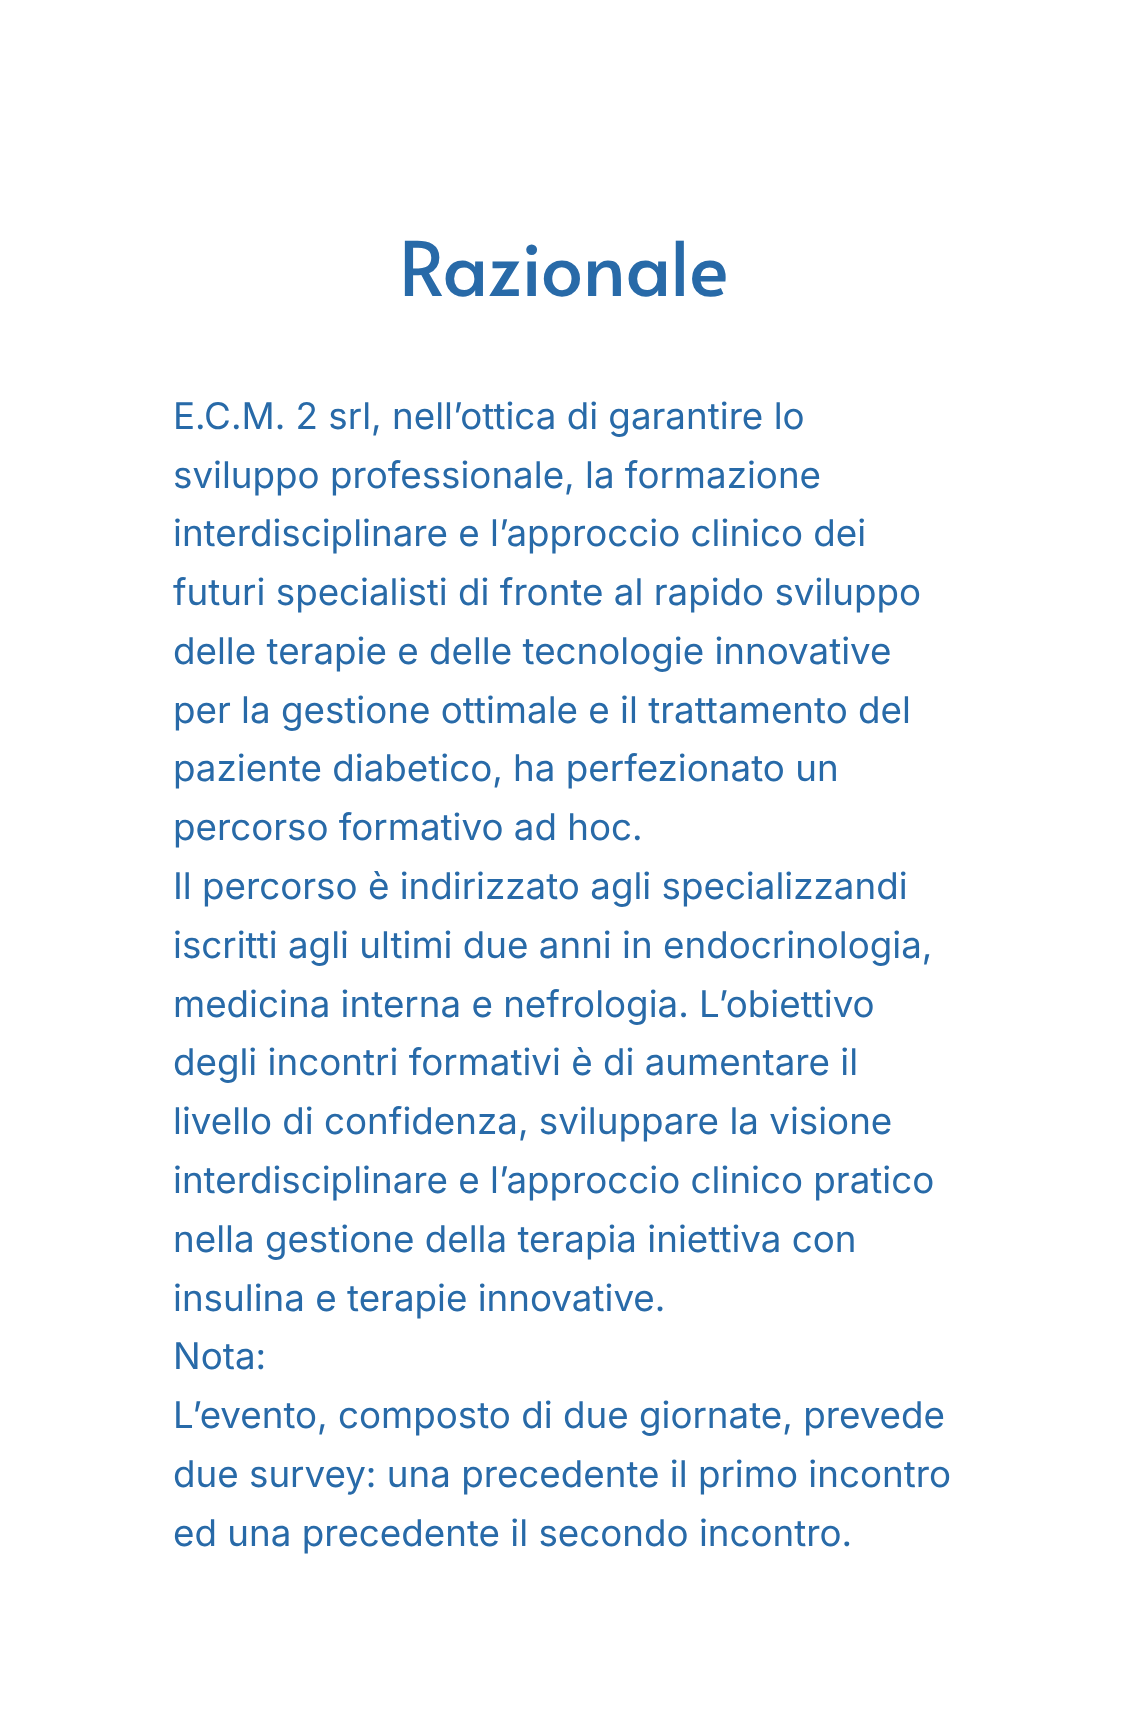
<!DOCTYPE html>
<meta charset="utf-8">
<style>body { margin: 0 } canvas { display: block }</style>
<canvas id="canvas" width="1126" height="1735"></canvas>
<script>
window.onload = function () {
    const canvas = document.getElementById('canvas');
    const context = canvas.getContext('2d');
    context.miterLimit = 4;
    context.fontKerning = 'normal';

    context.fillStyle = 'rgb(255, 255, 255)';
    context.fillRect(0, 0, 1126, 1735);
    context.font = '75.25px Alata';
    context.fillStyle = 'rgb(40, 106, 168)';
    context.fillText('Razionale', 399, 296);
    context.font = '36.75px Inter';
    context.fillText('E.C.M. 2 srl, nell’ottica di garantire lo', 173, 429);
    context.fillText('sviluppo professionale, la formazione', 173, 488);
    context.fillText('interdisciplinare e l’approccio clinico dei', 173, 546);
    context.fillText('futuri specialisti di fronte al rapido sviluppo', 173, 605);
    context.fillText('delle terapie e delle tecnologie innovative', 173, 664);
    context.fillText('per la gestione ottimale e il trattamento del', 173, 723);
    context.fillText('paziente diabetico, ha perfezionato un', 173, 781);
    context.fillText('percorso formativo ad hoc.', 173, 840);
    context.fillText('Il percorso è indirizzato agli specializzandi', 173, 899);
    context.fillText('iscritti agli ultimi due anni in endocrinologia,', 173, 958);
    context.fillText('medicina interna e nefrologia. L’obiettivo', 173, 1017);
    context.fillText('degli incontri formativi è di aumentare il', 173, 1075);
    context.fillText('livello di confidenza, sviluppare la visione', 173, 1134);
    context.fillText('interdisciplinare e l’approccio clinico pratico', 173, 1193);
    context.fillText('nella gestione della terapia iniettiva con', 173, 1252);
    context.fillText('insulina e terapie innovative.', 173, 1311);
    context.fillText('Nota:', 173, 1369);
    context.fillText('L’evento, composto di due giornate, prevede', 173, 1428);
    context.fillText('due survey: una precedente il primo incontro', 173, 1487);
    context.fillText('ed una precedente il secondo incontro.', 173, 1546);
};
</script>
